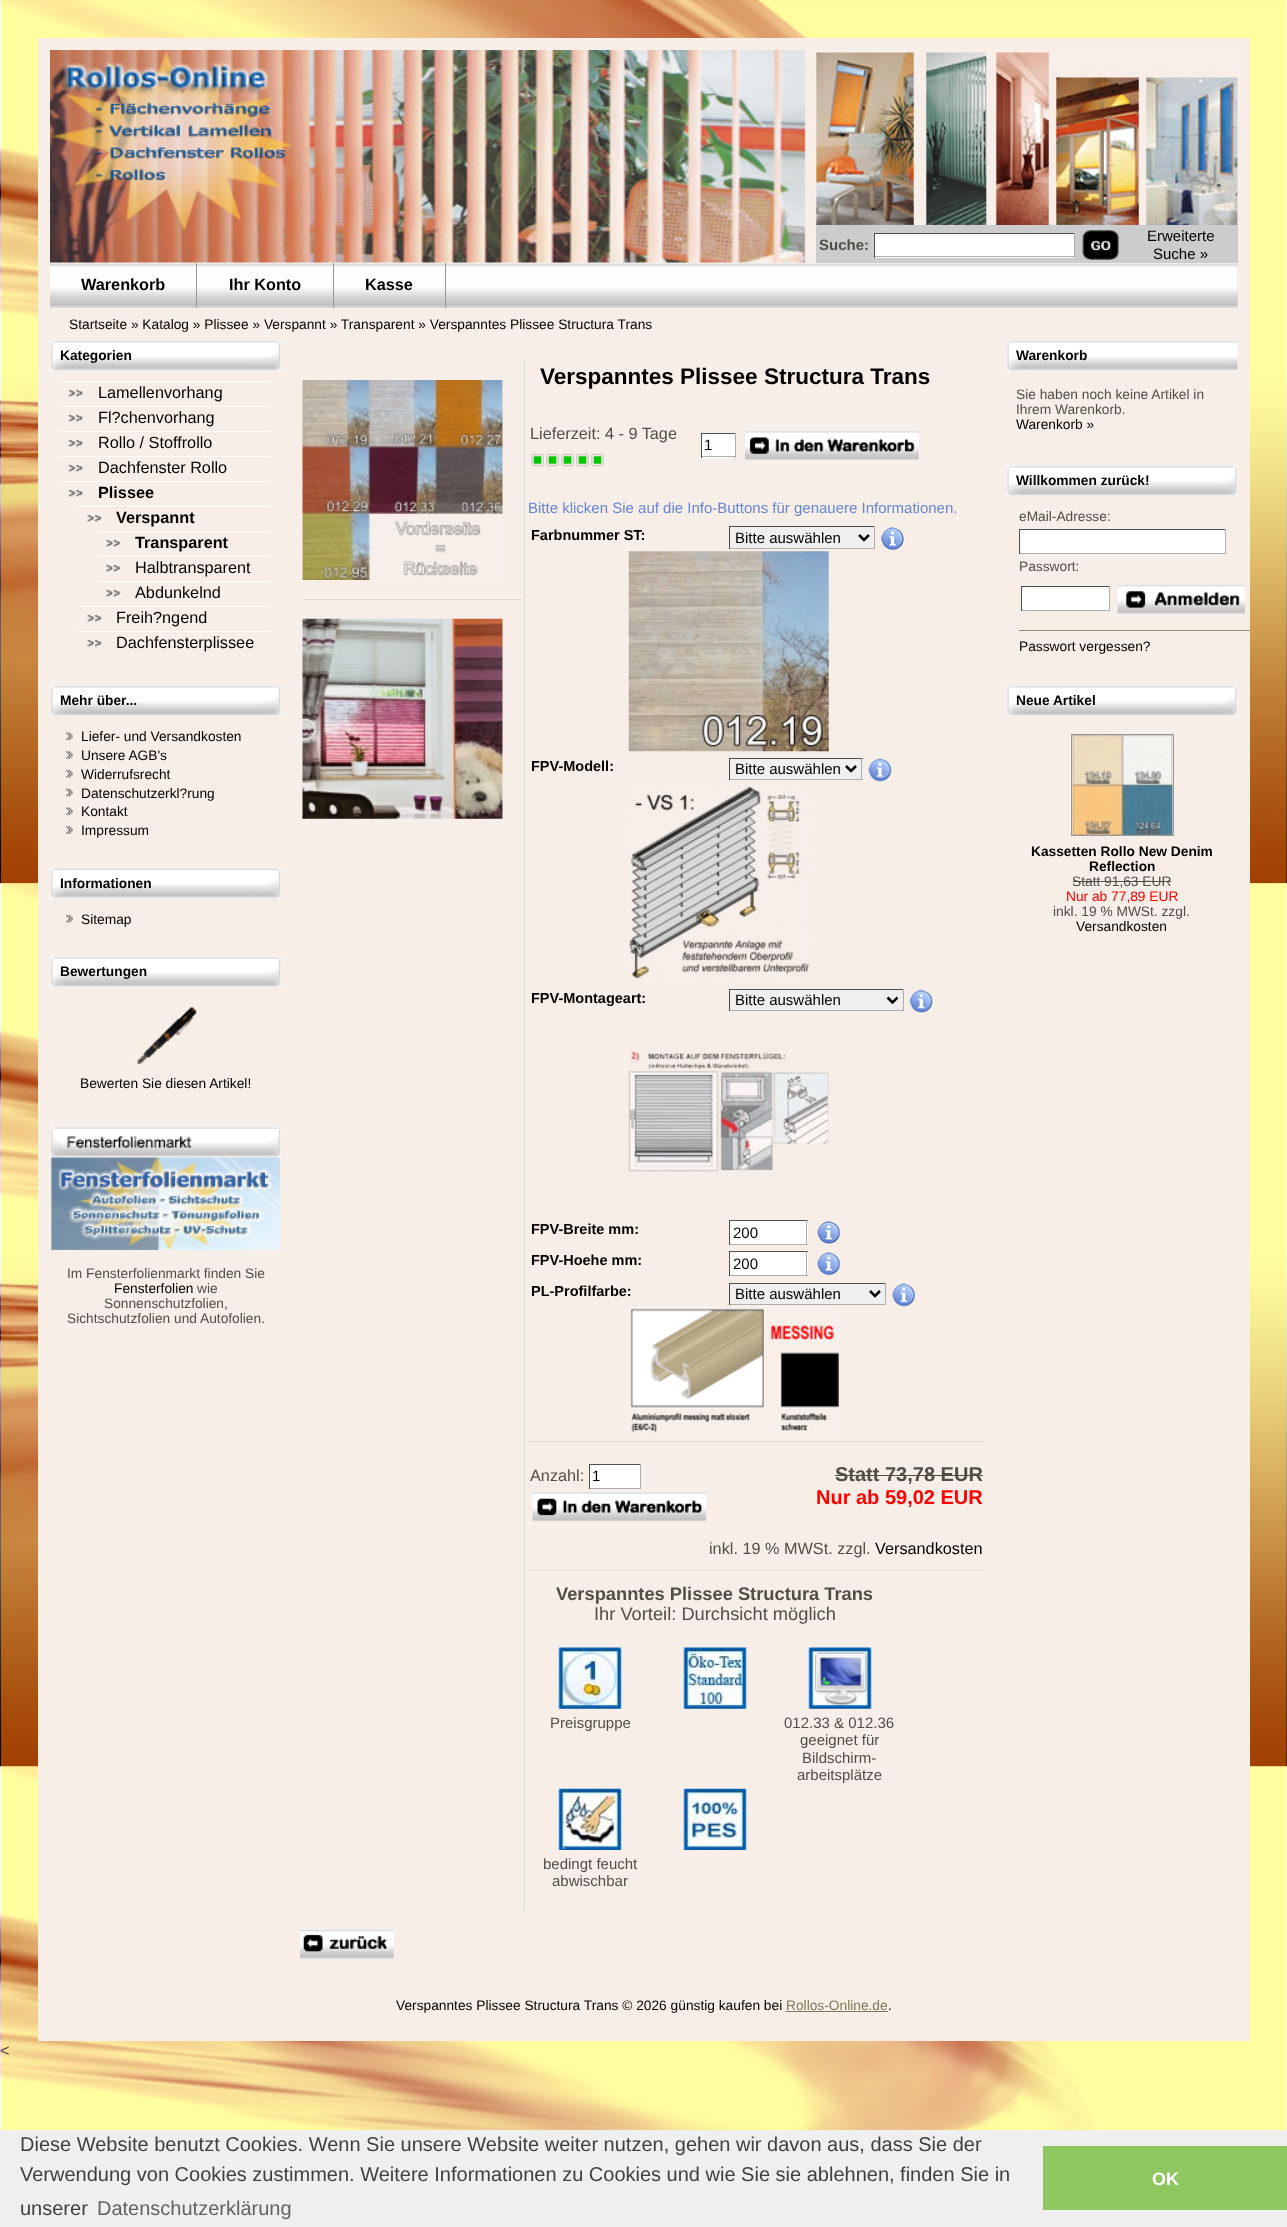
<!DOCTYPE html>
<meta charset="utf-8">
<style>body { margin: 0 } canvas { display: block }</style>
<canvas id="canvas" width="1287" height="2227"></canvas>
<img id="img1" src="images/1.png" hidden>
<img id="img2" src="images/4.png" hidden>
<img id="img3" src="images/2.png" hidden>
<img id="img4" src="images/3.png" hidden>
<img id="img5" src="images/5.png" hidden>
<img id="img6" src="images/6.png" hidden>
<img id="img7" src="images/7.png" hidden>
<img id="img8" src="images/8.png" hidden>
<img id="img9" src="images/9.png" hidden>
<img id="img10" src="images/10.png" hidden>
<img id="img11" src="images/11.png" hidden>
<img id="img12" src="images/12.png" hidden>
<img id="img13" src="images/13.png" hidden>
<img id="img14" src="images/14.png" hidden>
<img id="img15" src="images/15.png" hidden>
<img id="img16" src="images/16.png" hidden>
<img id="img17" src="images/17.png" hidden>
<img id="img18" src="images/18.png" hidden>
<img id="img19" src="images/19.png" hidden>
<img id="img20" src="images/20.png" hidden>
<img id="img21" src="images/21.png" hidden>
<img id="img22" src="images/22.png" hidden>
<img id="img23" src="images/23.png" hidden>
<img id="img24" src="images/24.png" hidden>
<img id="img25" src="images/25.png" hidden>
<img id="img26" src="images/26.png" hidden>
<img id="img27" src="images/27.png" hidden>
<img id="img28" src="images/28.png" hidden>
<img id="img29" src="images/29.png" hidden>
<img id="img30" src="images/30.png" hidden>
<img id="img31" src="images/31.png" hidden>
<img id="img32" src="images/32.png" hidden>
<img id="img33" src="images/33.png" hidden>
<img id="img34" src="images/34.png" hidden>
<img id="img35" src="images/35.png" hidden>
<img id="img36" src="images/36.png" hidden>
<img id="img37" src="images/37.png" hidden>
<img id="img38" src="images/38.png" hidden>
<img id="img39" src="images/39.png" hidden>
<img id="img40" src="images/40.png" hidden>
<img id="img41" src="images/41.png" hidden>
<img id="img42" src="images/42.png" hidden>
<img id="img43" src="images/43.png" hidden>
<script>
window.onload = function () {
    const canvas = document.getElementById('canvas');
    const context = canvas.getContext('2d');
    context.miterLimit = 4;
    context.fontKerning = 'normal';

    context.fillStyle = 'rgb(255, 255, 255)';
    context.fillRect(0, 0, 1287, 2227);
    context.drawImage(document.getElementById('img1'), 0, 0, 1287, 2130);
    context.fillStyle = 'rgb(248, 238, 232)';
    context.fillRect(38, 38, 1212, 2003);
    context.fillStyle = 'rgb(222, 222, 222)';
    context.fillRect(50, 263, 1188, 45);
    context.drawImage(document.getElementById('img2'), 50, 262, 1188, 46);
    context.drawImage(document.getElementById('img3'), 50, 50, 1188, 213);
    context.fillStyle = 'rgb(204, 204, 204)';
    context.fillRect(816, 225, 422, 38);
    context.fillStyle = 'rgb(255, 255, 255)';
    context.fillRect(875, 234, 199, 24);
    context.fillStyle = 'rgb(78, 78, 79)';
    context.fillRect(874, 233, 201, 1);
    context.fillStyle = 'rgb(174, 174, 174)';
    context.fillRect(1074, 233, 1, 25);
    context.fillRect(874, 256, 201, 1);
    context.fillStyle = 'rgb(78, 78, 79)';
    context.fillRect(874, 233, 1, 25);
    context.drawImage(document.getElementById('img4'), 1082, 230, 37, 30);
    context.fillStyle = 'rgb(153, 153, 153)';
    context.fillRect(196, 263, 1, 45);
    context.fillRect(333, 263, 1, 45);
    context.fillRect(445, 263, 1, 45);
    context.drawImage(document.getElementById('img5'), 50, 340, 232, 32);
    context.fillStyle = 'rgb(248, 238, 232)';
    context.fillRect(50, 371, 231, 1);
    context.drawImage(document.getElementById('img6'), 68, 389, 15, 8);
    context.fillStyle = 'rgb(255, 255, 255)';
    context.fillRect(60, 381, 211, 1);
    context.drawImage(document.getElementById('img6'), 68, 414, 15, 8);
    context.fillRect(60, 406, 211, 1);
    context.drawImage(document.getElementById('img6'), 68, 439, 15, 8);
    context.fillRect(60, 431, 211, 1);
    context.drawImage(document.getElementById('img6'), 68, 464, 15, 8);
    context.fillRect(60, 456, 211, 1);
    context.drawImage(document.getElementById('img6'), 68, 489, 15, 8);
    context.fillRect(60, 481, 211, 1);
    context.drawImage(document.getElementById('img7'), 87, 514, 15, 8);
    context.fillRect(79, 506, 192, 1);
    context.drawImage(document.getElementById('img8'), 106, 539, 15, 8);
    context.fillRect(98, 531, 173, 1);
    context.drawImage(document.getElementById('img8'), 106, 564, 15, 8);
    context.fillRect(98, 556, 173, 1);
    context.drawImage(document.getElementById('img9'), 106, 589, 15, 8);
    context.fillRect(98, 581, 173, 1);
    context.drawImage(document.getElementById('img7'), 87, 614, 15, 8);
    context.fillRect(79, 606, 192, 1);
    context.drawImage(document.getElementById('img7'), 87, 639, 15, 8);
    context.fillRect(79, 631, 192, 1);
    context.drawImage(document.getElementById('img5'), 50, 685, 232, 32);
    context.fillStyle = 'rgb(248, 238, 232)';
    context.fillRect(50, 716, 231, 1);
    context.drawImage(document.getElementById('img10'), 66, 732, 7, 9);
    context.drawImage(document.getElementById('img11'), 66, 751, 7, 8);
    context.drawImage(document.getElementById('img12'), 66, 769, 7, 9);
    context.drawImage(document.getElementById('img13'), 66, 788, 7, 9);
    context.drawImage(document.getElementById('img10'), 66, 807, 7, 9);
    context.drawImage(document.getElementById('img11'), 66, 826, 7, 8);
    context.drawImage(document.getElementById('img14'), 50, 867, 232, 32);
    context.drawImage(document.getElementById('img12'), 66, 914, 7, 9);
    context.drawImage(document.getElementById('img15'), 50, 956, 232, 32);
    context.drawImage(document.getElementById('img16'), 135, 1007, 62, 57);
    context.drawImage(document.getElementById('img17'), 50, 1126, 232, 32);
    context.drawImage(document.getElementById('img18'), 51, 1157, 229, 93);
    context.fillStyle = 'rgb(221, 221, 221)';
    context.fillRect(524, 359, 1, 1552);
    context.drawImage(document.getElementById('img19'), 302, 380, 201, 200);
    context.fillRect(303, 599, 218, 1);
    context.drawImage(document.getElementById('img20'), 302, 618, 201, 201);
    context.drawImage(document.getElementById('img21'), 531, 453, 73, 14);
    context.fillStyle = 'rgb(255, 255, 255)';
    context.fillRect(702, 434, 33, 24);
    context.fillStyle = 'rgb(78, 78, 79)';
    context.fillRect(701, 433, 35, 1);
    context.fillStyle = 'rgb(174, 174, 174)';
    context.fillRect(735, 433, 1, 25);
    context.fillRect(701, 456, 35, 1);
    context.fillStyle = 'rgb(78, 78, 79)';
    context.fillRect(701, 433, 1, 25);
    context.drawImage(document.getElementById('img22'), 745, 430, 174, 30);
    context.fillStyle = 'rgb(239, 239, 239)';
    context.fillRect(730, 527, 144, 21);
    context.fillStyle = 'rgb(78, 78, 79)';
    context.fillRect(729, 526, 146, 1);
    context.fillStyle = 'rgb(174, 174, 174)';
    context.fillRect(874, 526, 1, 23);
    context.fillRect(729, 548, 146, 1);
    context.fillStyle = 'rgb(78, 78, 79)';
    context.fillRect(729, 526, 1, 23);
    context.beginPath();
    context.moveTo(859, 535);
    context.lineTo(864, 540);
    context.lineTo(869, 535);
    context.strokeStyle = 'rgb(0, 0, 0)';
    context.lineWidth = 2.5;
    context.stroke();
    context.drawImage(document.getElementById('img23'), 881, 527, 24, 25);
    context.drawImage(document.getElementById('img24'), 628, 551, 201, 201);
    context.fillStyle = 'rgb(239, 239, 239)';
    context.fillRect(730, 759, 133, 20);
    context.fillStyle = 'rgb(78, 78, 79)';
    context.fillRect(729, 758, 134, 1);
    context.fillStyle = 'rgb(174, 174, 174)';
    context.fillRect(861, 758, 1, 22);
    context.fillRect(729, 779, 134, 1);
    context.fillStyle = 'rgb(78, 78, 79)';
    context.fillRect(729, 758, 1, 22);
    context.beginPath();
    context.moveTo(846, 766);
    context.lineTo(851, 771);
    context.lineTo(856, 766);
    context.stroke();
    context.drawImage(document.getElementById('img25'), 868, 758, 25, 25);
    context.drawImage(document.getElementById('img26'), 628, 786, 181, 193);
    context.fillStyle = 'rgb(239, 239, 239)';
    context.fillRect(730, 990, 173, 20);
    context.fillStyle = 'rgb(78, 78, 79)';
    context.fillRect(729, 989, 175, 1);
    context.fillStyle = 'rgb(174, 174, 174)';
    context.fillRect(903, 989, 1, 22);
    context.fillRect(729, 1010, 175, 1);
    context.fillStyle = 'rgb(78, 78, 79)';
    context.fillRect(729, 989, 1, 22);
    context.beginPath();
    context.moveTo(887.5, 997.5);
    context.lineTo(892.5, 1002.5);
    context.lineTo(897.5, 997.5);
    context.stroke();
    context.drawImage(document.getElementById('img27'), 909, 989, 25, 25);
    context.drawImage(document.getElementById('img28'), 628, 1025, 201, 155);
    context.fillStyle = 'rgb(255, 255, 255)';
    context.fillRect(730, 1221, 78, 23);
    context.fillStyle = 'rgb(78, 78, 79)';
    context.fillRect(729, 1220, 79, 1);
    context.fillStyle = 'rgb(174, 174, 174)';
    context.fillRect(806, 1220, 1, 25);
    context.fillRect(729, 1244, 79, 1);
    context.fillStyle = 'rgb(78, 78, 79)';
    context.fillRect(729, 1220, 1, 25);
    context.drawImage(document.getElementById('img29'), 817, 1221, 25, 24);
    context.fillStyle = 'rgb(255, 255, 255)';
    context.fillRect(730, 1252, 78, 23);
    context.fillStyle = 'rgb(78, 78, 79)';
    context.fillRect(729, 1251, 79, 1);
    context.fillStyle = 'rgb(174, 174, 174)';
    context.fillRect(806, 1251, 1, 25);
    context.fillRect(729, 1275, 79, 1);
    context.fillStyle = 'rgb(78, 78, 79)';
    context.fillRect(729, 1251, 1, 25);
    context.drawImage(document.getElementById('img30'), 817, 1252, 25, 25);
    context.fillStyle = 'rgb(239, 239, 239)';
    context.fillRect(730, 1284, 155, 20);
    context.fillStyle = 'rgb(78, 78, 79)';
    context.fillRect(729, 1283, 157, 1);
    context.fillStyle = 'rgb(174, 174, 174)';
    context.fillRect(885, 1283, 1, 22);
    context.fillRect(729, 1304, 157, 1);
    context.fillStyle = 'rgb(78, 78, 79)';
    context.fillRect(729, 1283, 1, 22);
    context.beginPath();
    context.moveTo(870, 1291);
    context.lineTo(875, 1296);
    context.lineTo(880, 1291);
    context.stroke();
    context.drawImage(document.getElementById('img31'), 892, 1283, 25, 25);
    context.drawImage(document.getElementById('img32'), 630, 1307, 209, 127);
    context.fillStyle = 'rgb(221, 221, 221)';
    context.fillRect(528, 1441, 457, 1);
    context.fillStyle = 'rgb(255, 255, 255)';
    context.fillRect(590, 1465, 50, 23);
    context.fillStyle = 'rgb(78, 78, 79)';
    context.fillRect(589, 1464, 52, 1);
    context.fillStyle = 'rgb(174, 174, 174)';
    context.fillRect(640, 1464, 1, 25);
    context.fillRect(589, 1488, 52, 1);
    context.fillStyle = 'rgb(78, 78, 79)';
    context.fillRect(589, 1464, 1, 25);
    context.drawImage(document.getElementById('img33'), 532, 1491, 175, 31);
    context.fillStyle = 'rgb(80, 79, 67)';
    context.fillRect(835, 1475, 148, 1);
    context.fillStyle = 'rgb(221, 221, 221)';
    context.fillRect(528, 1570, 457, 1);
    context.drawImage(document.getElementById('img34'), 558, 1647, 64, 62);
    context.drawImage(document.getElementById('img35'), 683, 1647, 64, 62);
    context.drawImage(document.getElementById('img36'), 808, 1647, 64, 62);
    context.drawImage(document.getElementById('img37'), 558, 1788, 64, 62);
    context.drawImage(document.getElementById('img38'), 683, 1788, 64, 62);
    context.drawImage(document.getElementById('img39'), 300, 1929, 94, 30);
    context.drawImage(document.getElementById('img40'), 1006, 340, 232, 31);
    context.drawImage(document.getElementById('img41'), 1006, 465, 232, 31);
    context.fillStyle = 'rgb(255, 255, 255)';
    context.fillRect(1020, 530, 205, 23);
    context.fillStyle = 'rgb(78, 78, 79)';
    context.fillRect(1019, 529, 207, 1);
    context.fillStyle = 'rgb(174, 174, 174)';
    context.fillRect(1225, 529, 1, 25);
    context.fillRect(1019, 553, 207, 1);
    context.fillStyle = 'rgb(78, 78, 79)';
    context.fillRect(1019, 529, 1, 25);
    context.fillStyle = 'rgb(255, 255, 255)';
    context.fillRect(1022, 587, 87, 23);
    context.fillStyle = 'rgb(78, 78, 79)';
    context.fillRect(1021, 586, 89, 1);
    context.fillStyle = 'rgb(174, 174, 174)';
    context.fillRect(1109, 586, 1, 25);
    context.fillRect(1021, 610, 89, 1);
    context.fillStyle = 'rgb(78, 78, 79)';
    context.fillRect(1021, 586, 1, 25);
    context.drawImage(document.getElementById('img42'), 1117, 584, 128, 30);
    context.fillStyle = 'rgb(146, 139, 107)';
    context.fillRect(1019, 630, 231, 1);
    context.drawImage(document.getElementById('img41'), 1006, 685, 232, 31);
    context.strokeStyle = 'rgb(153, 153, 153)';
    context.lineWidth = 1;
    context.strokeRect(1071.5, 734.5, 102, 101);
    context.drawImage(document.getElementById('img43'), 1072, 735, 101, 100);
    context.fillStyle = 'rgb(80, 79, 67)';
    context.fillRect(1073, 881, 98, 1);
    context.fillStyle = 'rgb(129, 121, 88)';
    context.fillRect(786, 2011, 102, 1);
    context.fillStyle = 'rgb(239, 239, 239)';
    context.fillRect(0, 2130, 1287, 97);
    context.fillStyle = 'rgb(142, 199, 96)';
    context.fillRect(1043, 2146, 244, 64);
    context.font = 'bold 15px Liberation Sans';
    context.fillStyle = 'rgb(80, 79, 67)';
    context.fillText('Suche:', 819, 250);
    context.font = '15px Liberation Sans';
    context.fillStyle = 'rgb(0, 0, 0)';
    context.fillText('Erweiterte', 1147, 241);
    context.fillText('Suche »', 1153, 259);
    context.font = 'bold 16.25px Liberation Sans';
    context.fillText('Warenkorb', 81, 290);
    context.fillText('Ihr Konto', 229, 290);
    context.fillText('Kasse', 365, 290);
    context.font = '13.75px Liberation Sans';
    context.fillText('Startseite » Katalog » Plissee » Verspannt » Transparent » Verspanntes Plissee Structura Trans', 69, 329);
    context.font = 'bold 13.75px Liberation Sans';
    context.fillText('Kategorien', 60, 360);
    context.font = '16.25px Liberation Sans';
    context.fillText('Lamellenvorhang', 98, 398);
    context.fillText('Fl?chenvorhang', 98, 423);
    context.fillText('Rollo / Stoffrollo', 98, 448);
    context.fillText('Dachfenster Rollo', 98, 473);
    context.font = 'bold 16.25px Liberation Sans';
    context.fillText('Plissee', 98, 498);
    context.fillText('Verspannt', 116, 523);
    context.fillText('Transparent', 135, 548);
    context.font = '16.25px Liberation Sans';
    context.fillText('Halbtransparent', 135, 573);
    context.fillText('Abdunkelnd', 135, 598);
    context.fillText('Freih?ngend', 116, 623);
    context.fillText('Dachfensterplissee', 116, 648);
    context.font = 'bold 13.75px Liberation Sans';
    context.fillText('Mehr über...', 60, 705);
    context.font = '13.75px Liberation Sans';
    context.fillText('Liefer- und Versandkosten', 81, 741);
    context.fillText('Unsere AGB\'s', 81, 760);
    context.fillText('Widerrufsrecht', 81, 779);
    context.fillText('Datenschutzerkl?rung', 81, 798);
    context.fillText('Kontakt', 81, 816);
    context.fillText('Impressum', 81, 835);
    context.font = 'bold 13.75px Liberation Sans';
    context.fillText('Informationen', 60, 888);
    context.font = '13.75px Liberation Sans';
    context.fillText('Sitemap', 81, 924);
    context.font = 'bold 13.75px Liberation Sans';
    context.fillText('Bewertungen', 60, 976);
    context.font = '13.75px Liberation Sans';
    context.fillText('Bewerten Sie diesen Artikel!', 80, 1088);
    context.fillStyle = 'rgb(80, 79, 67)';
    context.fillText('Im Fensterfolienmarkt finden Sie', 67, 1278);
    context.fillStyle = 'rgb(0, 0, 0)';
    context.fillText('Fensterfolien', 114, 1293);
    context.fillStyle = 'rgb(80, 79, 67)';
    context.fillText('wie', 197, 1293);
    context.fillText('Sonnenschutzfolien,', 104, 1308);
    context.fillText('Sichtschutzfolien und Autofolien.', 67, 1323);
    context.font = 'bold 22.5px Liberation Sans';
    context.fillStyle = 'rgb(0, 0, 0)';
    context.fillText('Verspanntes Plissee Structura Trans', 540, 384);
    context.font = '16.25px Liberation Sans';
    context.fillStyle = 'rgb(80, 79, 67)';
    context.fillText('Lieferzeit: 4 - 9 Tage', 530, 439);
    context.font = '15px Liberation Sans';
    context.fillStyle = 'rgb(0, 0, 0)';
    context.fillText('1', 704, 450);
    context.fillStyle = 'rgb(100, 134, 212)';
    context.fillText('Bitte klicken Sie auf die Info-Buttons für genauere Informationen.', 528, 513);
    context.font = 'bold 14.5px Liberation Sans';
    context.fillStyle = 'rgb(0, 0, 0)';
    context.fillText('Farbnummer ST:', 531, 540);
    context.font = '15px Liberation Sans';
    context.fillText('Bitte auswählen', 735, 543);
    context.font = 'bold 14.5px Liberation Sans';
    context.fillText('FPV-Modell:', 531, 771);
    context.font = '15px Liberation Sans';
    context.fillText('Bitte auswählen', 735, 774);
    context.font = 'bold 14.5px Liberation Sans';
    context.fillText('FPV-Montageart:', 531, 1003);
    context.font = '15px Liberation Sans';
    context.fillText('Bitte auswählen', 735, 1005);
    context.font = 'bold 14.5px Liberation Sans';
    context.fillText('FPV-Breite mm:', 531, 1234);
    context.font = '15px Liberation Sans';
    context.fillText('200', 733, 1238);
    context.font = 'bold 14.5px Liberation Sans';
    context.fillText('FPV-Hoehe mm:', 531, 1265);
    context.font = '15px Liberation Sans';
    context.fillText('200', 733, 1269);
    context.font = 'bold 14.5px Liberation Sans';
    context.fillText('PL-Profilfarbe:', 531, 1296);
    context.font = '15px Liberation Sans';
    context.fillText('Bitte auswählen', 735, 1299);
    context.font = '16.25px Liberation Sans';
    context.fillStyle = 'rgb(80, 79, 67)';
    context.fillText('Anzahl:', 530, 1481);
    context.font = '15px Liberation Sans';
    context.fillStyle = 'rgb(0, 0, 0)';
    context.fillText('1', 592, 1481);
    context.font = 'bold 20px Liberation Sans';
    context.fillStyle = 'rgb(80, 79, 67)';
    context.fillText('Statt 73,78 EUR', 835, 1481);
    context.fillStyle = 'rgb(255, 0, 0)';
    context.fillText('Nur ab 59,02 EUR', 816, 1504);
    context.font = '16.25px Liberation Sans';
    context.fillStyle = 'rgb(80, 79, 67)';
    context.fillText('inkl. 19 % MWSt. zzgl.', 709, 1554);
    context.fillStyle = 'rgb(0, 0, 0)';
    context.fillText('Versandkosten', 875, 1554);
    context.font = 'bold 18.3px Liberation Sans';
    context.fillStyle = 'rgb(80, 79, 67)';
    context.fillText('Verspanntes Plissee Structura Trans', 556, 1600);
    context.font = '18.3px Liberation Sans';
    context.fillText('Ihr Vorteil: Durchsicht möglich', 594, 1620);
    context.font = '15px Liberation Sans';
    context.fillText('Preisgruppe', 550, 1728);
    context.fillText('012.33 & 012.36', 784, 1728);
    context.fillText('geeignet für', 800, 1745);
    context.fillText('Bildschirm-', 802, 1763);
    context.fillText('arbeitsplätze', 797, 1780);
    context.fillText('bedingt feucht', 543, 1869);
    context.fillText('abwischbar', 552, 1886);
    context.font = 'bold 13.75px Liberation Sans';
    context.fillStyle = 'rgb(0, 0, 0)';
    context.fillText('Warenkorb', 1016, 360);
    context.font = '13.75px Liberation Sans';
    context.fillStyle = 'rgb(80, 79, 67)';
    context.fillText('Sie haben noch keine Artikel in', 1016, 399);
    context.fillText('Ihrem Warenkorb.', 1016, 414);
    context.fillStyle = 'rgb(0, 0, 0)';
    context.fillText('Warenkorb »', 1016, 429);
    context.font = 'bold 13.75px Liberation Sans';
    context.fillText('Willkommen zurück!', 1016, 485);
    context.font = '13.75px Liberation Sans';
    context.fillStyle = 'rgb(80, 79, 67)';
    context.fillText('eMail-Adresse:', 1019, 521);
    context.fillText('Passwort:', 1019, 571);
    context.fillStyle = 'rgb(0, 0, 0)';
    context.fillText('Passwort vergessen?', 1019, 651);
    context.font = 'bold 13.75px Liberation Sans';
    context.fillText('Neue Artikel', 1016, 705);
    context.fillText('Kassetten Rollo New Denim', 1031, 856);
    context.fillText('Reflection', 1089, 871);
    context.font = '13.75px Liberation Sans';
    context.fillStyle = 'rgb(80, 79, 67)';
    context.fillText('Statt 91,63 EUR', 1072, 886);
    context.fillStyle = 'rgb(255, 0, 0)';
    context.fillText('Nur ab 77,89 EUR', 1066, 901);
    context.fillStyle = 'rgb(80, 79, 67)';
    context.fillText('inkl. 19 % MWSt. zzgl.', 1053, 916);
    context.fillStyle = 'rgb(0, 0, 0)';
    context.fillText('Versandkosten', 1076, 931);
    context.fillText('Verspanntes Plissee Structura Trans © 2026 günstig kaufen bei', 396, 2010);
    context.fillStyle = 'rgb(129, 121, 88)';
    context.fillText('Rollos-Online.de', 786, 2010);
    context.fillStyle = 'rgb(0, 0, 0)';
    context.fillText('.', 888, 2010);
    context.font = '16.25px Liberation Sans';
    context.fillStyle = 'rgb(80, 79, 67)';
    context.fillText('<', 0, 2056);
    context.font = '20px Liberation Sans';
    context.fillStyle = 'rgb(64, 64, 64)';
    context.fillText('Diese Website benutzt Cookies. Wenn Sie unsere Website weiter nutzen, gehen wir davon aus, dass Sie der', 20, 2151);
    context.fillText('Verwendung von Cookies zustimmen. Weitere Informationen zu Cookies und wie Sie sie ablehnen, finden Sie in', 20, 2181);
    context.fillText('unserer', 20, 2215);
    context.fillStyle = 'rgb(99, 99, 99)';
    context.fillText('Datenschutzerklärung', 97, 2215);
    context.font = 'bold 18px Liberation Sans';
    context.fillStyle = 'rgb(255, 255, 255)';
    context.fillText('OK', 1152, 2185);
};
</script>
